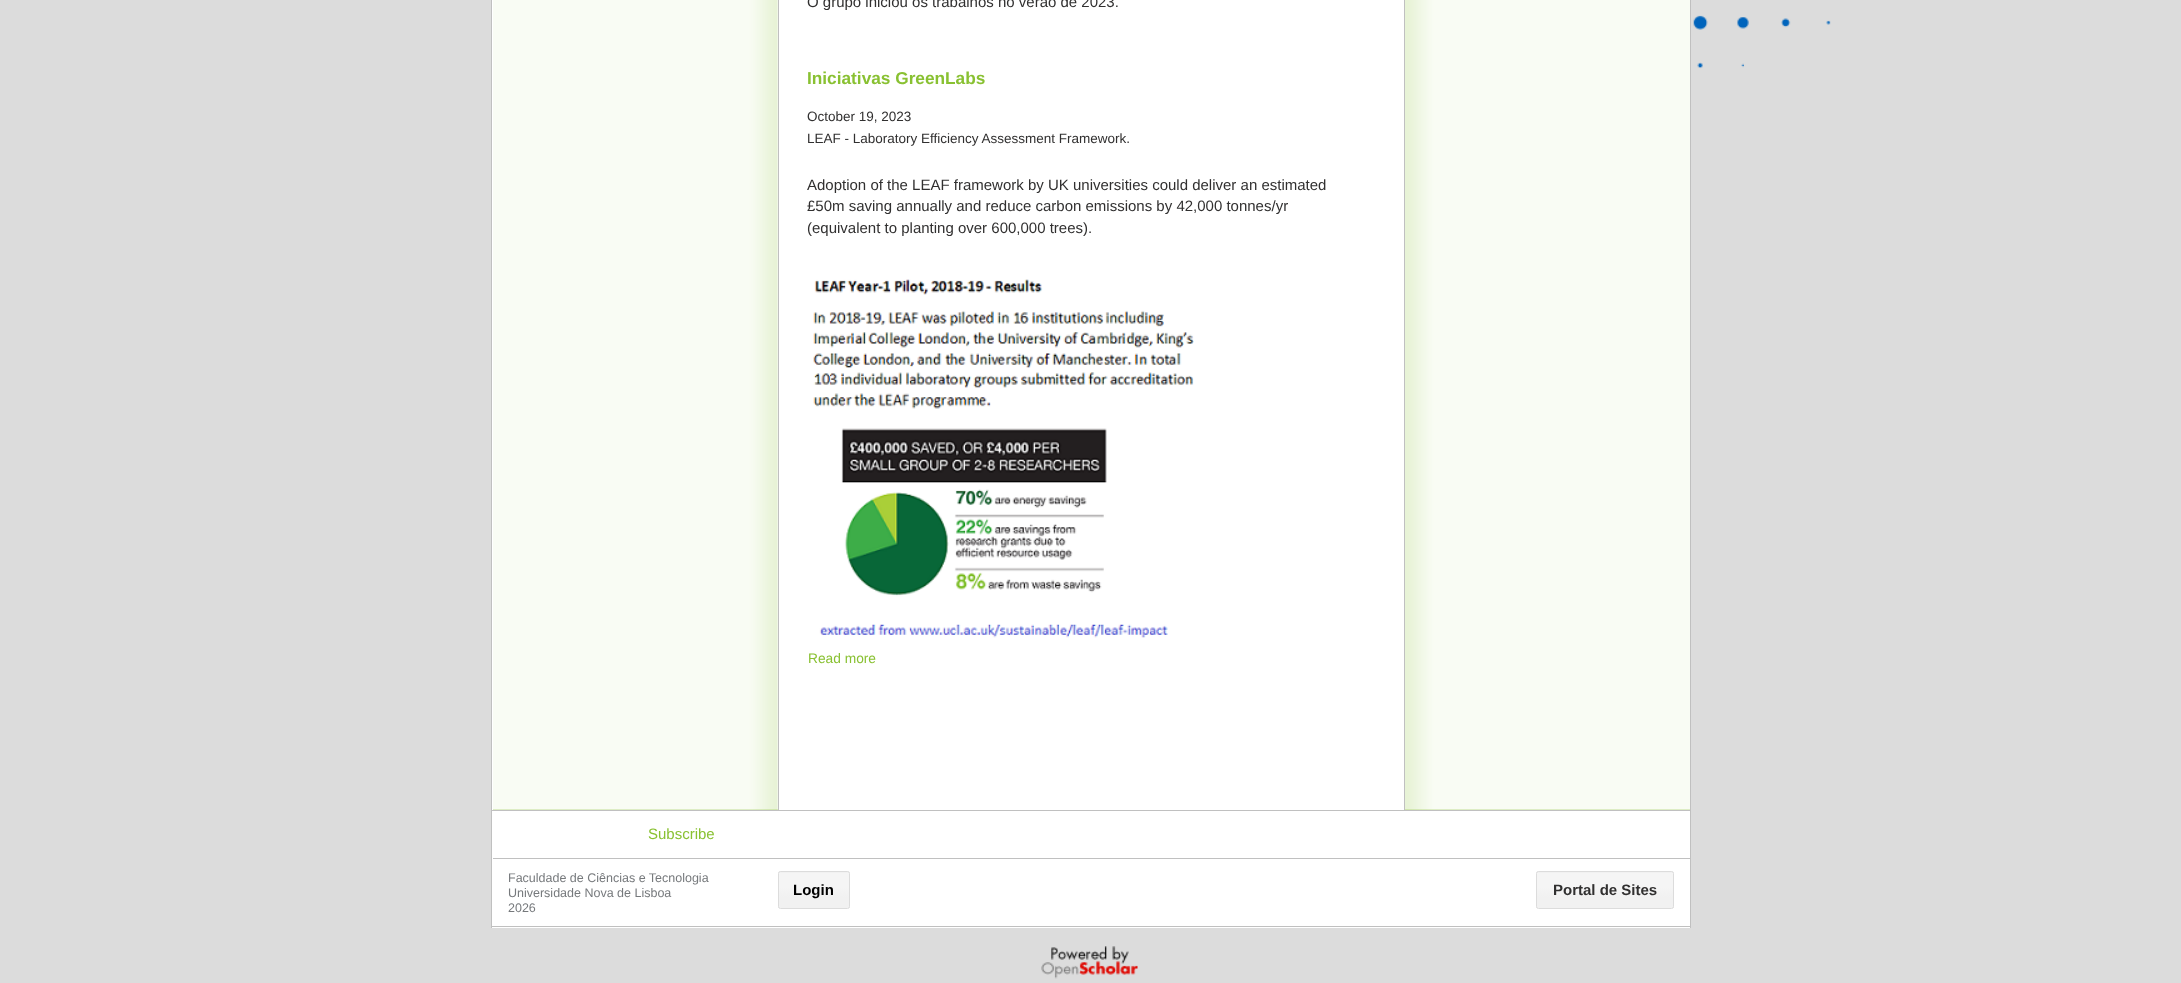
<!DOCTYPE html>
<meta charset="utf-8">
<style>body { margin: 0 } canvas { display: block }</style>
<canvas id="canvas" width="2181" height="983"></canvas>
<img id="img1" src="images/1.png" hidden>
<img id="img2" src="images/2.png" hidden>
<img id="img3" src="images/3.png" hidden>
<img id="img4" src="images/4.png" hidden>
<img id="img5" src="images/5.png" hidden>
<script>
window.onload = function () {
    const canvas = document.getElementById('canvas');
    const context = canvas.getContext('2d');
    context.miterLimit = 4;
    context.fontKerning = 'normal';
    let gradient;

    context.fillStyle = 'rgb(220, 220, 220)';
    context.fillRect(0, 0, 2181, 983);
    context.drawImage(document.getElementById('img1'), 1691, 0, 140, 69);
    context.fillStyle = 'rgb(255, 255, 255)';
    context.fillRect(492, 0, 912, 810);
    context.strokeStyle = 'rgb(192, 192, 192)';
    context.strokeRect(491.5, -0.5, 1199, 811);
    context.fillStyle = 'rgb(137, 193, 50)';
    context.fillRect(493, 0, 285, 810);
    context.drawImage(document.getElementById('img2'), 493, 0, 285, 810);
    context.fillStyle = 'rgb(192, 192, 192)';
    context.fillRect(778, 0, 1, 810);
    context.drawImage(document.getElementById('img3'), 813, 279, 381, 359);
    context.fillStyle = 'rgb(137, 193, 50)';
    context.fillRect(1405, 0, 285, 810);
    context.drawImage(document.getElementById('img4'), 1405, 0, 285, 810);
    context.fillStyle = 'rgb(192, 192, 192)';
    context.fillRect(1404, 0, 1, 810);
    context.fillStyle = 'rgb(255, 255, 255)';
    context.fillRect(492, 811, 1198, 117);
    context.fillStyle = 'rgb(192, 192, 192)';
    context.fillRect(1690, 811, 1, 117);
    context.fillRect(491, 926, 1200, 1);
    context.fillRect(491, 811, 1, 117);
    context.fillRect(493, 858, 1197, 1);
    context.save();
    context.beginPath();
    context.roundRect(778, 871, 72, 38, 2.5);
    context.clip();
    gradient = context.createLinearGradient(779, 852, 779, 862);
    gradient.addColorStop(0, 'rgb(245, 245, 245)');
    gradient.addColorStop(1, 'rgb(241, 241, 241)');
    context.fillStyle = gradient;
    context.fillRect(778, 871, 72, 2);
    context.restore();
    gradient = context.createLinearGradient(779, 887, 779, 897);
    gradient.addColorStop(0, 'rgb(245, 245, 245)');
    gradient.addColorStop(1, 'rgb(241, 241, 241)');
    context.fillStyle = gradient;
    context.fillRect(778, 873, 72, 35);
    context.beginPath();
    context.roundRect(778.5, 871.5, 71, 37, 2);
    context.strokeStyle = 'rgb(220, 220, 220)';
    context.stroke();
    context.save();
    context.beginPath();
    context.roundRect(1536, 871, 138, 38, 2.5);
    context.clip();
    gradient = context.createLinearGradient(1538, 852, 1538, 862);
    gradient.addColorStop(0, 'rgb(245, 245, 245)');
    gradient.addColorStop(1, 'rgb(241, 241, 241)');
    context.fillStyle = gradient;
    context.fillRect(1536, 871, 138, 2);
    context.restore();
    gradient = context.createLinearGradient(1538, 887, 1538, 897);
    gradient.addColorStop(0, 'rgb(245, 245, 245)');
    gradient.addColorStop(1, 'rgb(241, 241, 241)');
    context.fillStyle = gradient;
    context.fillRect(1536, 873, 138, 35);
    context.beginPath();
    context.roundRect(1536.5, 871.5, 137, 37, 2);
    context.stroke();
    context.drawImage(document.getElementById('img5'), 1041, 946, 97, 33);
    context.font = '15px Liberation Sans';
    context.fillStyle = 'rgb(49, 48, 48)';
    context.fillText('O grupo iniciou os trabalhos no verão de 2023.', 807, 7);
    context.font = 'bold 17.25px Liberation Sans';
    context.fillStyle = 'rgb(137, 193, 50)';
    context.fillText('Iniciativas GreenLabs', 807, 84);
    context.font = '13.5px Liberation Sans';
    context.fillStyle = 'rgb(49, 48, 48)';
    context.fillText('October 19, 2023', 807, 121);
    context.fillText('LEAF - Laboratory Efficiency Assessment Framework.', 807, 143);
    context.font = '15px Liberation Sans';
    context.fillText('Adoption of the LEAF framework by UK universities could deliver an estimated', 807, 190);
    context.fillText('£50m saving annually and reduce carbon emissions by 42,000 tonnes/yr', 807, 211);
    context.fillText('(equivalent to planting over 600,000 trees).', 807, 233);
    context.font = '13.75px Liberation Sans';
    context.fillStyle = 'rgb(137, 193, 50)';
    context.fillText('Read more', 808, 663);
    context.font = '15px Liberation Sans';
    context.fillText('Subscribe', 648, 839);
    context.font = '12.5px Liberation Sans';
    context.fillStyle = 'rgb(118, 121, 124)';
    context.fillText('Faculdade de Ciências e Tecnologia', 508, 882);
    context.fillText('Universidade Nova de Lisboa', 508, 897);
    context.fillText('2026', 508, 912);
    context.font = 'bold 15px Liberation Sans';
    context.fillStyle = 'rgb(0, 0, 0)';
    context.fillText('Login', 793, 895);
    context.fillStyle = 'rgb(49, 48, 48)';
    context.fillText('Portal de Sites', 1553, 895);
};
</script>
